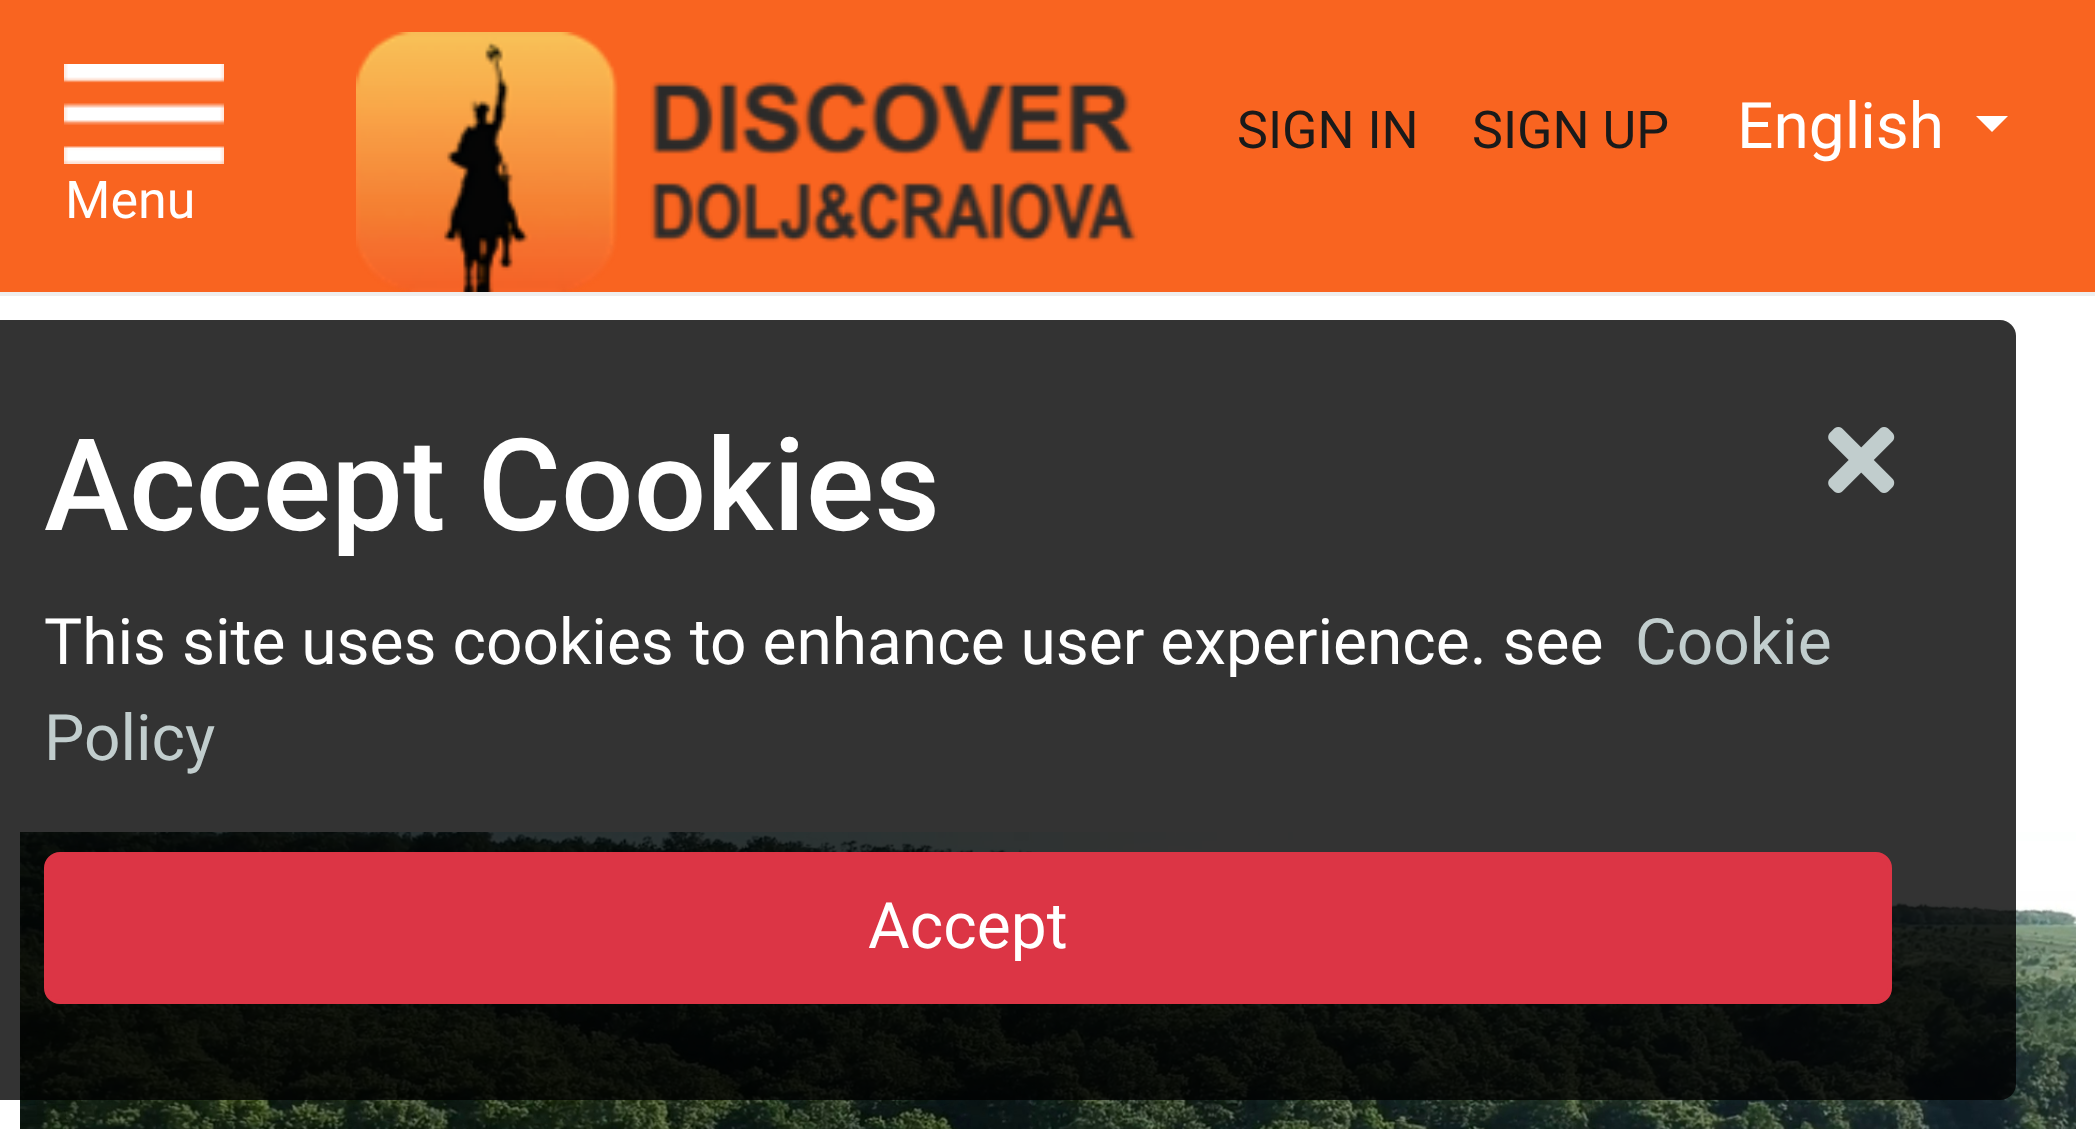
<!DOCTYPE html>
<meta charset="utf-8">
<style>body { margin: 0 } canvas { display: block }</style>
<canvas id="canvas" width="2095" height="1129"></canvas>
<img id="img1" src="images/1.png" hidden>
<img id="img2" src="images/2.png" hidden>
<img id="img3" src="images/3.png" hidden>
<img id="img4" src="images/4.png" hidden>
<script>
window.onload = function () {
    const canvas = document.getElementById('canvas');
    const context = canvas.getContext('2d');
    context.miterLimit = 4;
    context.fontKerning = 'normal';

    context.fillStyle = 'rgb(255, 255, 255)';
    context.fillRect(0, 0, 2095, 1129);
    context.fillStyle = 'rgb(249, 100, 32)';
    context.fillRect(0, 0, 2095, 292);
    context.drawImage(document.getElementById('img1'), 356, 32, 782, 260);
    context.fillStyle = 'rgb(255, 255, 255)';
    context.beginPath();
    context.moveTo(1976, 116);
    context.lineTo(2008, 116);
    context.lineTo(1992, 132);
    context.closePath();
    context.fill();
    context.drawImage(document.getElementById('img2'), 64, 64, 160, 100);
    context.fillStyle = 'rgb(238, 238, 238)';
    context.fillRect(0, 292, 2095, 4);
    context.drawImage(document.getElementById('img3'), 20, 832, 2056, 297);
    context.fillStyle = 'rgba(0, 0, 0, 0.8)';
    context.beginPath();
    context.roundRect(-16, 320, 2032, 780, 16);
    context.fill();
    context.drawImage(document.getElementById('img4'), 1828, 427, 67, 66);
    context.fillStyle = 'rgb(220, 53, 69)';
    context.beginPath();
    context.roundRect(46, 854, 1844, 148, 14);
    context.fill();
    context.strokeStyle = 'rgb(220, 53, 69)';
    context.lineWidth = 4;
    context.stroke();
    context.font = '52px Roboto';
    context.fillStyle = 'rgb(26, 26, 26)';
    context.fillText('SIGN IN', 1237, 148);
    context.fillText('SIGN UP', 1472, 148);
    context.font = '64px Roboto';
    context.fillStyle = 'rgb(255, 255, 255)';
    context.fillText('English', 1737, 148);
    context.font = '52px Roboto';
    context.fillText('Menu', 65, 218);
    context.font = '500 128px Roboto';
    context.fillText('Accept Cookies', 44, 530);
    context.font = '64px Roboto';
    context.fillText('This site uses cookies to enhance user experience. see', 44, 664);
    context.fillStyle = 'rgb(193, 205, 205)';
    context.fillText('Cookie', 1635, 664);
    context.fillText('Policy', 44, 760);
    context.fillStyle = 'rgb(255, 255, 255)';
    context.fillText('Accept', 868, 948);
};
</script>
